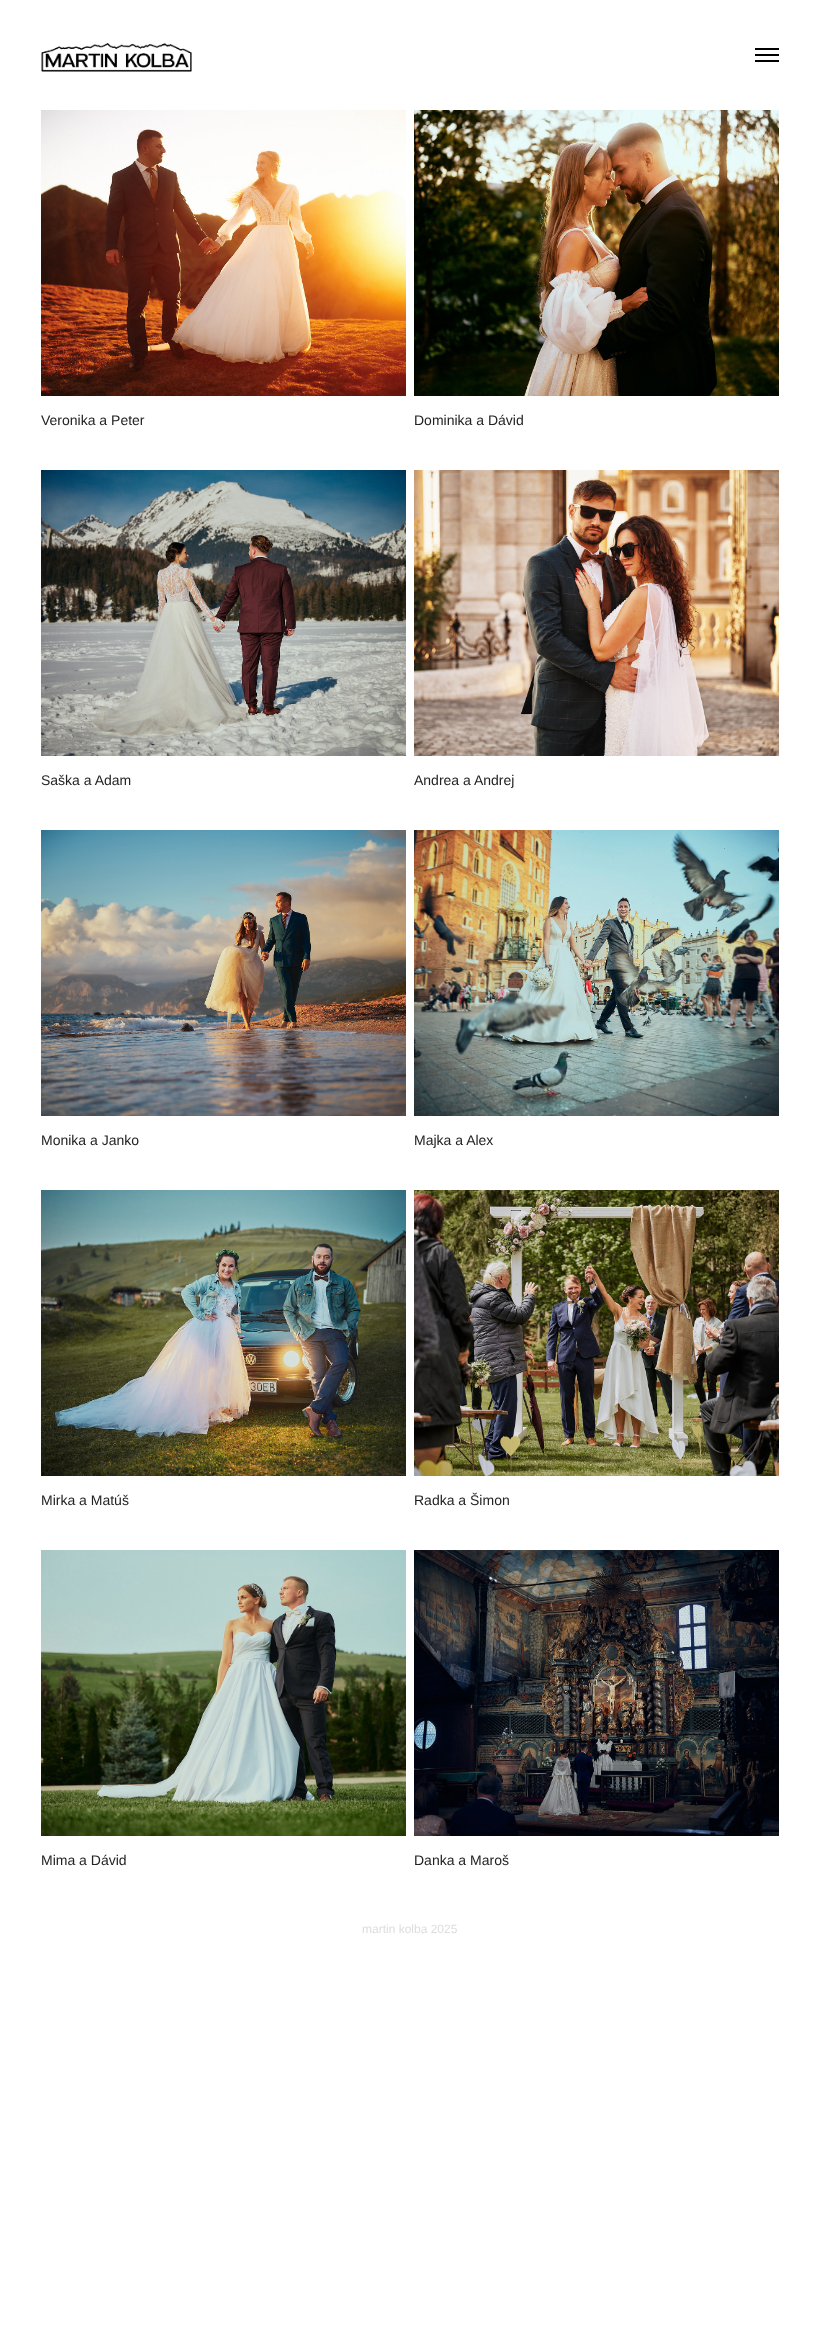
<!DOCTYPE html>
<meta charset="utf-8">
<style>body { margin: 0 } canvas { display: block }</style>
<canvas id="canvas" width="820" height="2343"></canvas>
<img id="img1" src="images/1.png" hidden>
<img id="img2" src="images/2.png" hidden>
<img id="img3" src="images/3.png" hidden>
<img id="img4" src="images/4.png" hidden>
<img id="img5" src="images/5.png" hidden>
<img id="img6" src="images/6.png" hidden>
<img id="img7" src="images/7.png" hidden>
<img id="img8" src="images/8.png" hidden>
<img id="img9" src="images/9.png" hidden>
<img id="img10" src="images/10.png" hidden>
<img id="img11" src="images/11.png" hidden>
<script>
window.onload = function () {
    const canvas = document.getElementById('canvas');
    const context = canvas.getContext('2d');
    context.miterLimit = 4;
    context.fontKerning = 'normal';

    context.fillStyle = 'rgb(255, 255, 255)';
    context.fillRect(0, 0, 820, 2343);
    context.drawImage(document.getElementById('img1'), 41, 42, 151, 30);
    context.fillStyle = 'rgb(0, 0, 0)';
    context.fillRect(755, 48, 24, 2);
    context.fillRect(755, 54, 24, 2);
    context.fillRect(755, 60, 24, 2);
    context.drawImage(document.getElementById('img2'), 41, 110, 365, 286);
    context.drawImage(document.getElementById('img3'), 414, 110, 365, 286);
    context.drawImage(document.getElementById('img4'), 41, 470, 365, 286);
    context.drawImage(document.getElementById('img5'), 414, 470, 365, 286);
    context.drawImage(document.getElementById('img6'), 41, 830, 365, 286);
    context.drawImage(document.getElementById('img7'), 414, 830, 365, 286);
    context.drawImage(document.getElementById('img8'), 41, 1190, 365, 286);
    context.drawImage(document.getElementById('img9'), 414, 1190, 365, 286);
    context.drawImage(document.getElementById('img10'), 41, 1550, 365, 286);
    context.drawImage(document.getElementById('img11'), 414, 1550, 365, 286);
    context.font = '14px Liberation Sans';
    context.fillStyle = 'rgb(34, 34, 34)';
    context.fillText('Veronika a Peter', 41, 425);
    context.fillText('Dominika a Dávid', 414, 425);
    context.fillText('Saška a Adam', 41, 785);
    context.fillText('Andrea a Andrej', 414, 785);
    context.fillText('Monika a Janko', 41, 1145);
    context.fillText('Majka a Alex', 414, 1145);
    context.fillText('Mirka a Matúš', 41, 1505);
    context.fillText('Radka a Šimon', 414, 1505);
    context.fillText('Mima a Dávid', 41, 1865);
    context.fillText('Danka a Maroš', 414, 1865);
    context.font = '12px Liberation Sans';
    context.fillStyle = 'rgb(221, 221, 221)';
    context.fillText('martin kolba 2025', 362, 1933);
};
</script>
